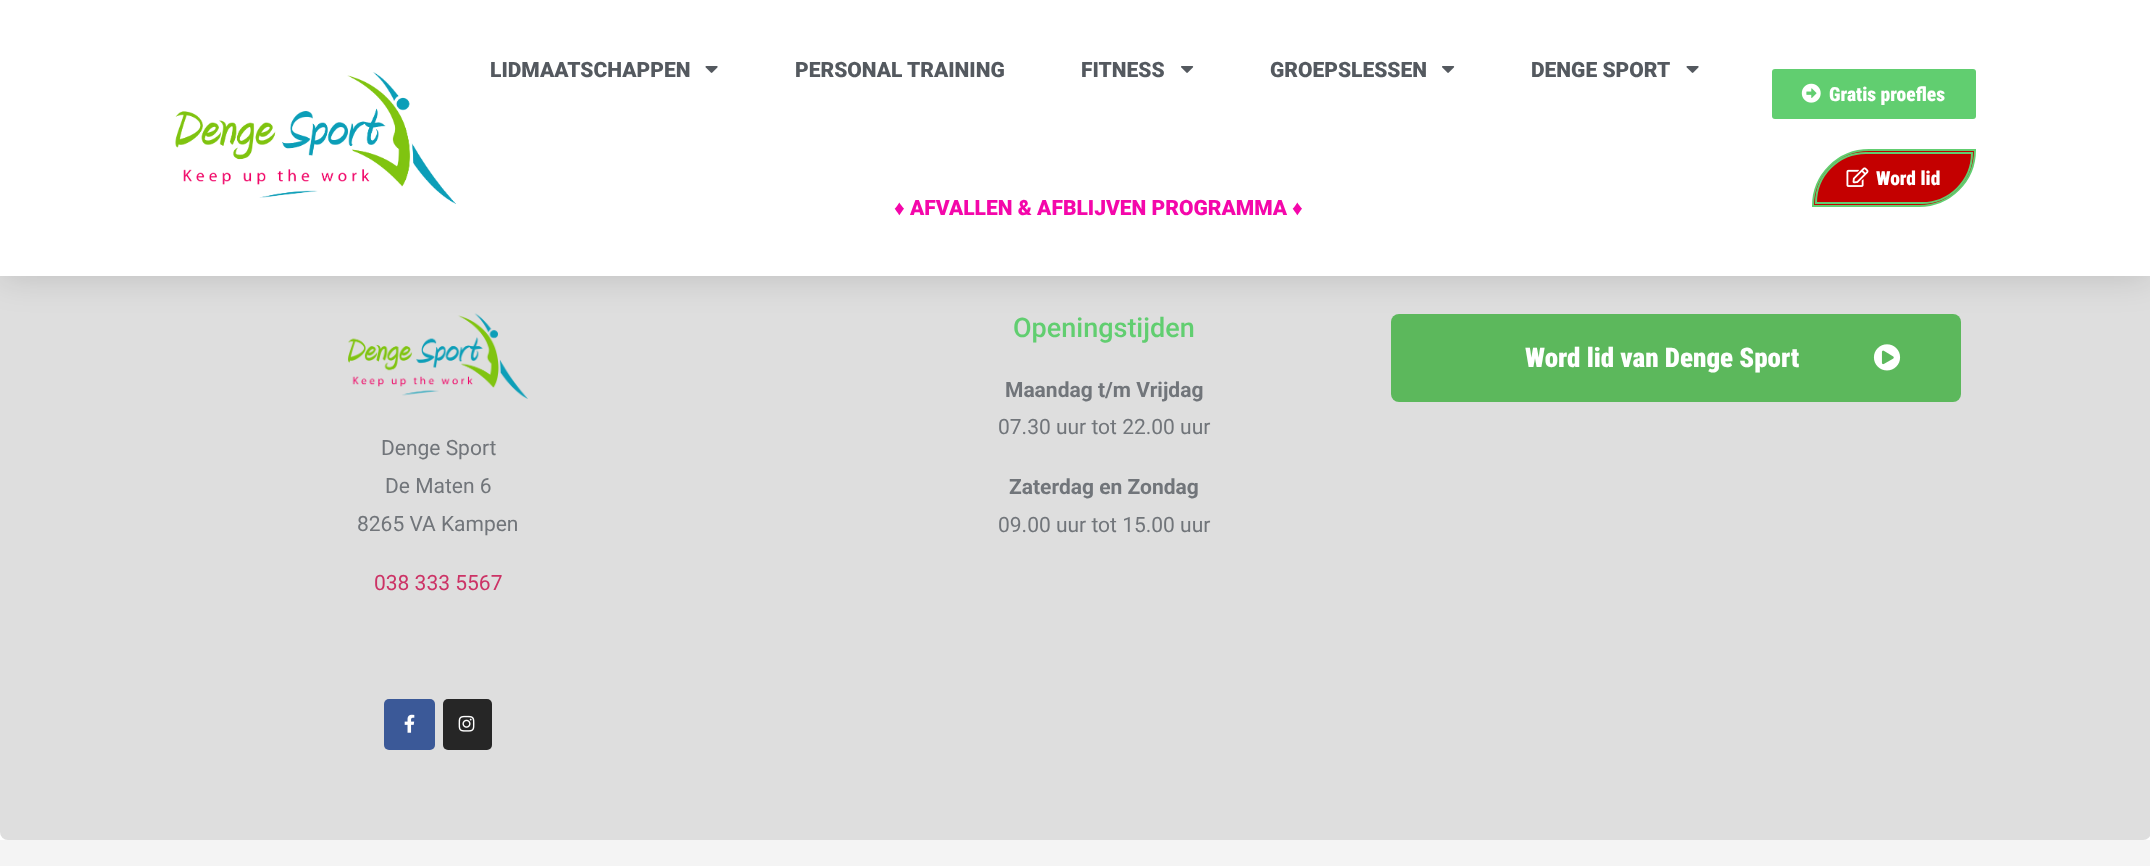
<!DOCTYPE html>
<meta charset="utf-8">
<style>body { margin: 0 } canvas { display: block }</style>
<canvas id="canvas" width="2150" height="866"></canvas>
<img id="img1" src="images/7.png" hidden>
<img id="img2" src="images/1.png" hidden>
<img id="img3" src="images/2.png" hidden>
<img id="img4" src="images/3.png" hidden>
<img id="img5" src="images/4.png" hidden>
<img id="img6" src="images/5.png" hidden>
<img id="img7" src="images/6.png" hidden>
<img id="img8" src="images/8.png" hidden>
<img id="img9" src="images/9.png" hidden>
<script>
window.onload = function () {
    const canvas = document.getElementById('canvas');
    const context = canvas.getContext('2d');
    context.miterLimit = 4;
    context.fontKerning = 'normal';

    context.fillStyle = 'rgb(255, 255, 255)';
    context.fillRect(0, 0, 2150, 866);
    context.fillStyle = 'rgb(222, 222, 222)';
    context.beginPath();
    context.roundRect(0, 224, 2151, 616, 8);
    context.fill();
    context.fillStyle = 'rgb(92, 184, 92)';
    context.beginPath();
    context.roundRect(1391, 314, 570, 88, 8);
    context.fill();
    context.drawImage(document.getElementById('img1'), 348, 313, 180, 86);
    context.fillStyle = 'rgba(0, 0, 0, 0.15)';
    context.filter = 'blur(18px)';
    context.beginPath();
    context.rect(0, 0, 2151, 276);
    context.fill();
    context.filter = 'none';
    context.fillStyle = 'rgb(255, 255, 255)';
    context.fillRect(0, 0, 2150, 276);
    context.drawImage(document.getElementById('img2'), 175, 72, 281, 132);
    context.drawImage(document.getElementById('img3'), 705, 66, 13, 7);
    context.drawImage(document.getElementById('img4'), 1181, 66, 13, 7);
    context.drawImage(document.getElementById('img4'), 1442, 66, 13, 7);
    context.drawImage(document.getElementById('img3'), 1686, 66, 13, 7);
    context.fillStyle = 'rgb(97, 206, 112)';
    context.beginPath();
    context.roundRect(1772, 69, 204, 50, 3);
    context.fill();
    context.drawImage(document.getElementById('img5'), 1801, 83, 20, 20);
    context.fillStyle = 'rgb(196, 0, 0)';
    context.beginPath();
    context.roundRect(1813, 150, 162, 56, [57, 0, 57, 0]);
    context.fill();
    context.strokeStyle = 'rgb(97, 206, 112)';
    context.lineWidth = 2;
    context.stroke();
    context.beginPath();
    context.roundRect(1816, 153, 156, 50, [51, 0, 51, 0]);
    context.stroke();
    context.drawImage(document.getElementById('img6'), 1846, 167, 23, 20);
    context.drawImage(document.getElementById('img7'), 1873, 344, 28, 27);
    context.fillStyle = 'rgb(59, 89, 152)';
    context.beginPath();
    context.roundRect(384, 699, 51, 51, 5);
    context.fill();
    context.drawImage(document.getElementById('img8'), 404, 714, 11, 19);
    context.fillStyle = 'rgb(38, 38, 38)';
    context.beginPath();
    context.roundRect(443, 699, 49, 51, 5);
    context.fill();
    context.drawImage(document.getElementById('img9'), 458, 715, 17, 17);
    context.fillStyle = 'rgb(244, 244, 244)';
    context.fillRect(0, 840, 2150, 26);
    context.font = '900 21px Roboto';
    context.fillStyle = 'rgb(84, 89, 95)';
    context.fillText('LIDMAATSCHAPPEN', 490, 77);
    context.fillText('PERSONAL TRAINING', 795, 77);
    context.fillText('FITNESS', 1081, 77);
    context.fillText('GROEPSLESSEN', 1270, 77);
    context.fillText('DENGE SPORT', 1531, 77);
    context.font = 'bold 21px Liberation Serif';
    context.fillStyle = 'rgb(244, 7, 170)';
    context.fillText('♦', 894, 215);
    context.font = '900 21px Roboto';
    context.fillText('AFVALLEN & AFBLIJVEN PROGRAMMA', 910, 215);
    context.font = 'bold 21px Liberation Serif';
    context.fillText('♦', 1292, 215);
    context.font = '900 19.5px Roboto Condensed';
    context.fillStyle = 'rgb(255, 255, 255)';
    context.fillText('Gratis proefles', 1829, 101);
    context.fillText('Word lid', 1876, 185);
    context.font = '500 27px Roboto';
    context.fillStyle = 'rgb(97, 206, 112)';
    context.fillText('Openingstijden', 1013, 337);
    context.font = 'bold 21px Roboto';
    context.fillStyle = 'rgb(113, 117, 122)';
    context.fillText('Maandag t/m Vrijdag', 1005, 397);
    context.font = '21px Roboto';
    context.fillText('07.30 uur tot 22.00 uur', 998, 434);
    context.font = 'bold 21px Roboto';
    context.fillText('Zaterdag en Zondag', 1009, 494);
    context.font = '21px Roboto';
    context.fillText('09.00 uur tot 15.00 uur', 998, 532);
    context.font = '900 27px Roboto Condensed';
    context.fillStyle = 'rgb(255, 255, 255)';
    context.fillText('Word lid van Denge Sport', 1525, 367);
    context.font = '21px Roboto';
    context.fillStyle = 'rgb(113, 117, 122)';
    context.fillText('Denge Sport', 381, 455);
    context.fillText('De Maten 6', 385, 493);
    context.fillText('8265 VA Kampen', 357, 531);
    context.fillStyle = 'rgb(204, 51, 102)';
    context.fillText('038 333 5567', 374, 590);
};
</script>
